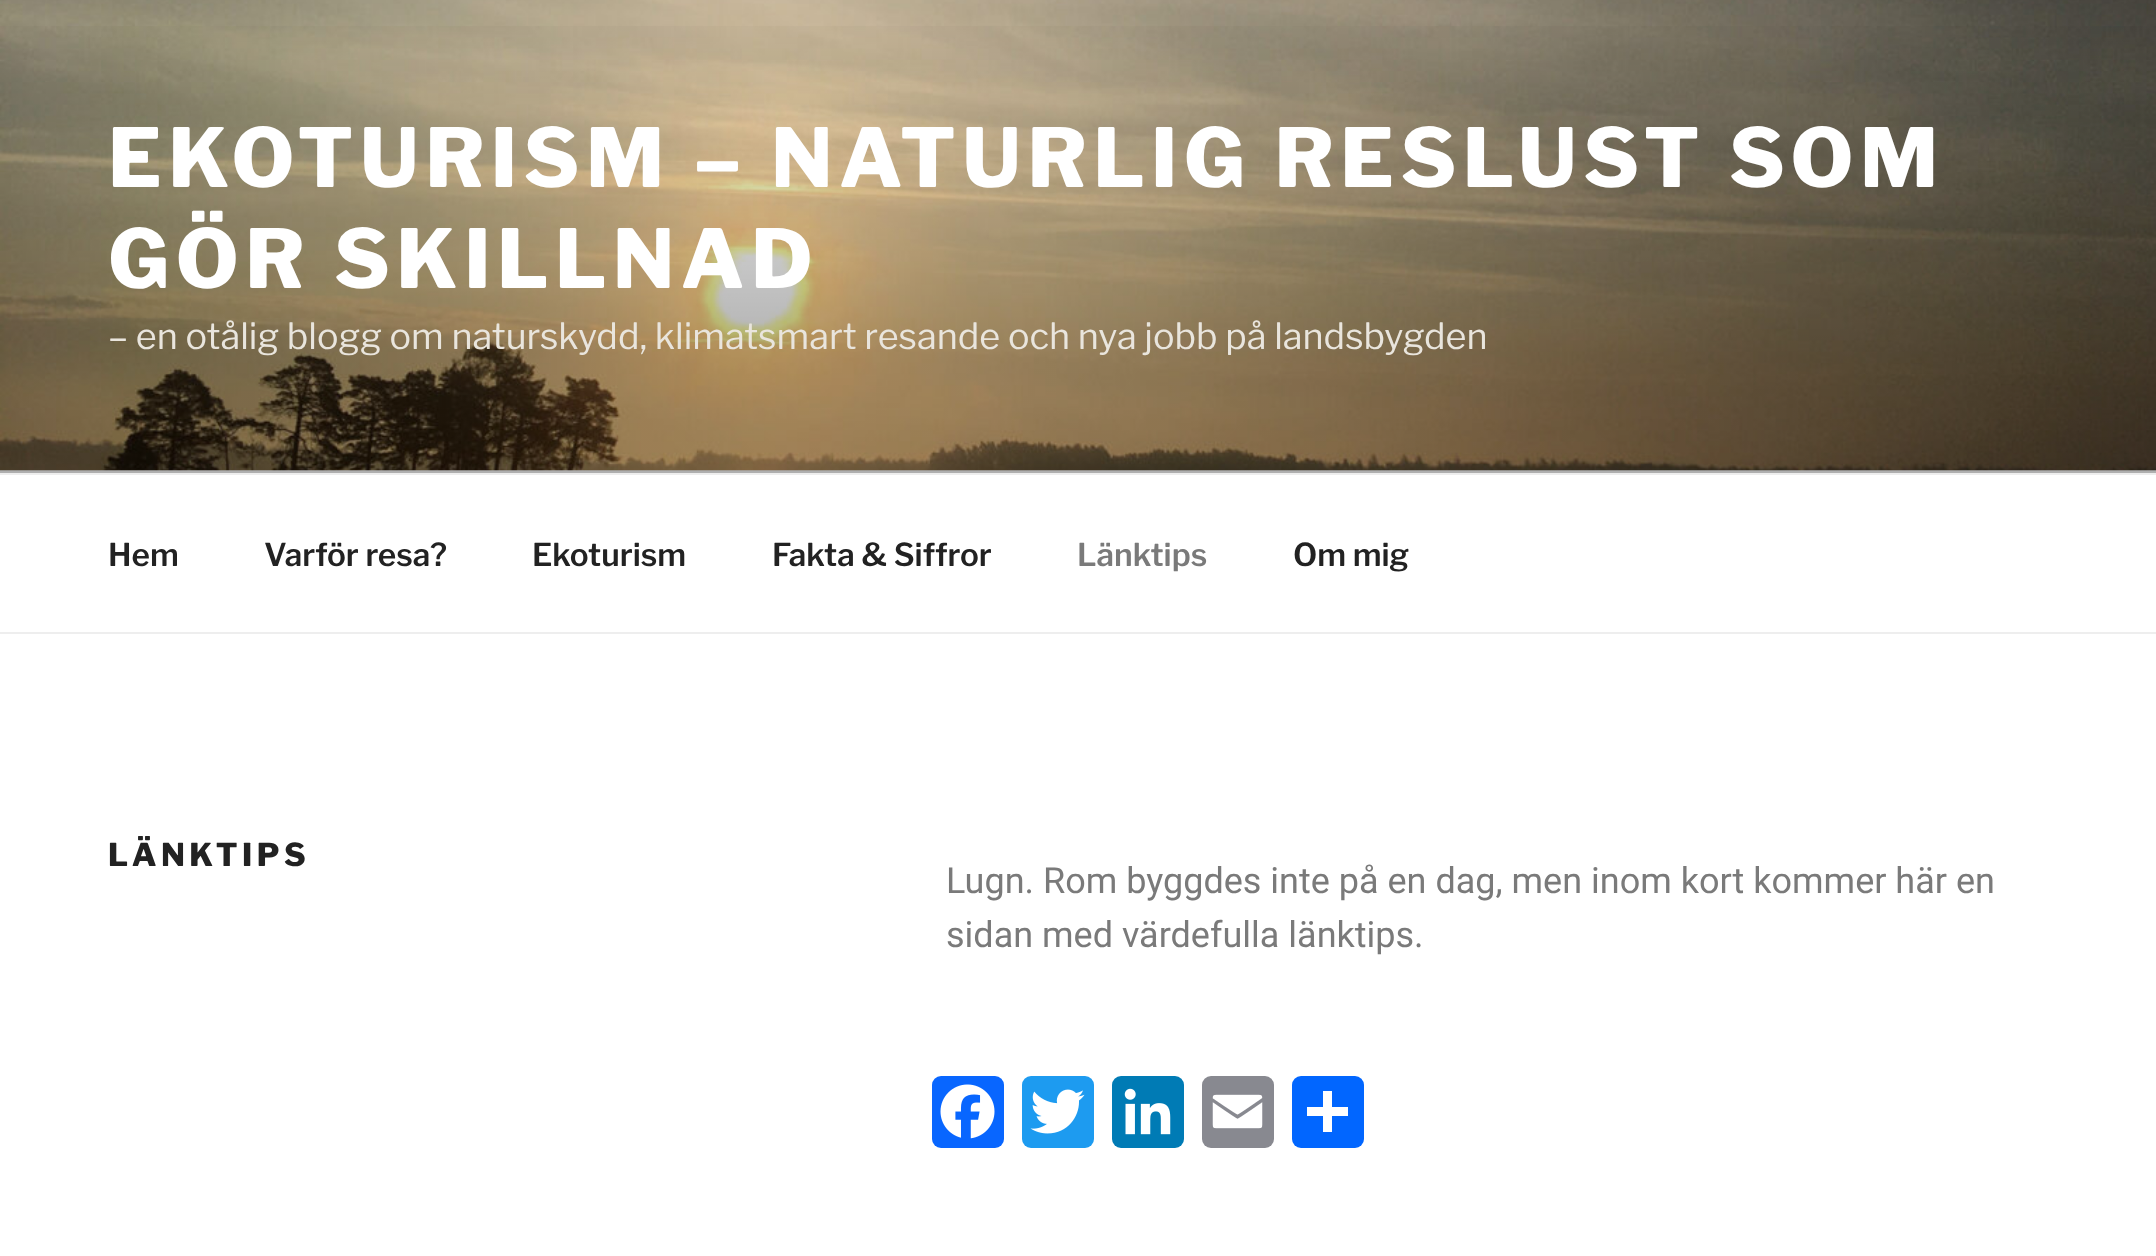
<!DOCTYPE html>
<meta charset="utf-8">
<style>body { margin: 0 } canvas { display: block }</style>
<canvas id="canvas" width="2156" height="1256"></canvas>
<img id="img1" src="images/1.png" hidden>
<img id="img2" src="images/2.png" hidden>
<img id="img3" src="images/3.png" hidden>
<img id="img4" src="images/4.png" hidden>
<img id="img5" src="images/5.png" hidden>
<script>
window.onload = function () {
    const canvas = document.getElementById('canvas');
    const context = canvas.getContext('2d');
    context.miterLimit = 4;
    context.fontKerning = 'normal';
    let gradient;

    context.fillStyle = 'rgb(255, 255, 255)';
    context.fillRect(0, 0, 2156, 1256);
    context.fillStyle = 'rgb(250, 250, 250)';
    context.fillRect(0, 470, 2156, 3);
    context.drawImage(document.getElementById('img1'), 0, 0, 2156, 471);
    gradient = context.createLinearGradient(1079, 0, 1079, 473);
    gradient.addColorStop(0, 'rgba(0, 0, 0, 0)');
    gradient.addColorStop(0.75, 'rgba(0, 0, 0, 0.3)');
    gradient.addColorStop(1, 'rgba(0, 0, 0, 0.3)');
    context.fillStyle = gradient;
    context.fillRect(0, 26, 2156, 447);
    context.fillStyle = 'rgb(238, 238, 238)';
    context.fillRect(0, 473, 2156, 2);
    context.fillRect(0, 632, 2156, 2);
    context.fillStyle = 'rgb(8, 102, 255)';
    context.beginPath();
    context.roundRect(932, 1076, 72, 72, 9);
    context.fill();
    context.drawImage(document.getElementById('img2'), 940, 1084, 55, 55);
    context.fillStyle = 'rgb(29, 155, 240)';
    context.beginPath();
    context.roundRect(1022, 1076, 72, 72, 9);
    context.fill();
    context.drawImage(document.getElementById('img3'), 1030, 1089, 55, 45);
    context.fillStyle = 'rgb(0, 123, 181)';
    context.beginPath();
    context.roundRect(1112, 1076, 72, 72, 9);
    context.fill();
    context.drawImage(document.getElementById('img4'), 1124, 1088, 47, 47);
    context.fillStyle = 'rgb(136, 137, 144)';
    context.beginPath();
    context.roundRect(1202, 1076, 72, 72, 9);
    context.fill();
    context.drawImage(document.getElementById('img5'), 1212, 1094, 51, 35);
    context.fillStyle = 'rgb(1, 102, 255)';
    context.beginPath();
    context.roundRect(1292, 1076, 72, 72, 9);
    context.fill();
    context.fillStyle = 'rgb(255, 255, 255)';
    context.fillRect(1323, 1091, 9, 41);
    context.fillRect(1307, 1107, 41, 9);
    context.letterSpacing = '6.5px';
    context.font = '800 81px Libre Franklin';
    context.fillText('EKOTURISM – NATURLIG RESLUST SOM', 108, 187);
    context.fillText('GÖR SKILLNAD', 108, 288);
    context.letterSpacing = '0px';
    context.font = '36px Libre Franklin';
    context.fillStyle = 'rgb(233, 229, 221)';
    context.fillText('– en otålig blogg om naturskydd, klimatsmart resande och nya jobb på landsbygden', 108, 349);
    context.font = '600 31.5px Libre Franklin';
    context.fillStyle = 'rgb(34, 34, 34)';
    context.fillText('Hem', 108, 566);
    context.fillText('Varför resa?', 264, 566);
    context.fillText('Ekoturism', 532, 566);
    context.fillText('Fakta & Siffror', 772, 566);
    context.fillStyle = 'rgb(122, 122, 122)';
    context.fillText('Länktips', 1077, 566);
    context.fillStyle = 'rgb(34, 34, 34)';
    context.fillText('Om mig', 1293, 566);
    context.letterSpacing = '4.5px';
    context.font = '800 31.5px Libre Franklin';
    context.fillText('LÄNKTIPS', 108, 866);
    context.letterSpacing = '0px';
    context.font = '36px Roboto';
    context.fillStyle = 'rgb(122, 122, 122)';
    context.fillText('Lugn. Rom byggdes inte på en dag, men inom kort kommer här en', 946, 893);
    context.fillText('sidan med värdefulla länktips.', 946, 947);
};
</script>
